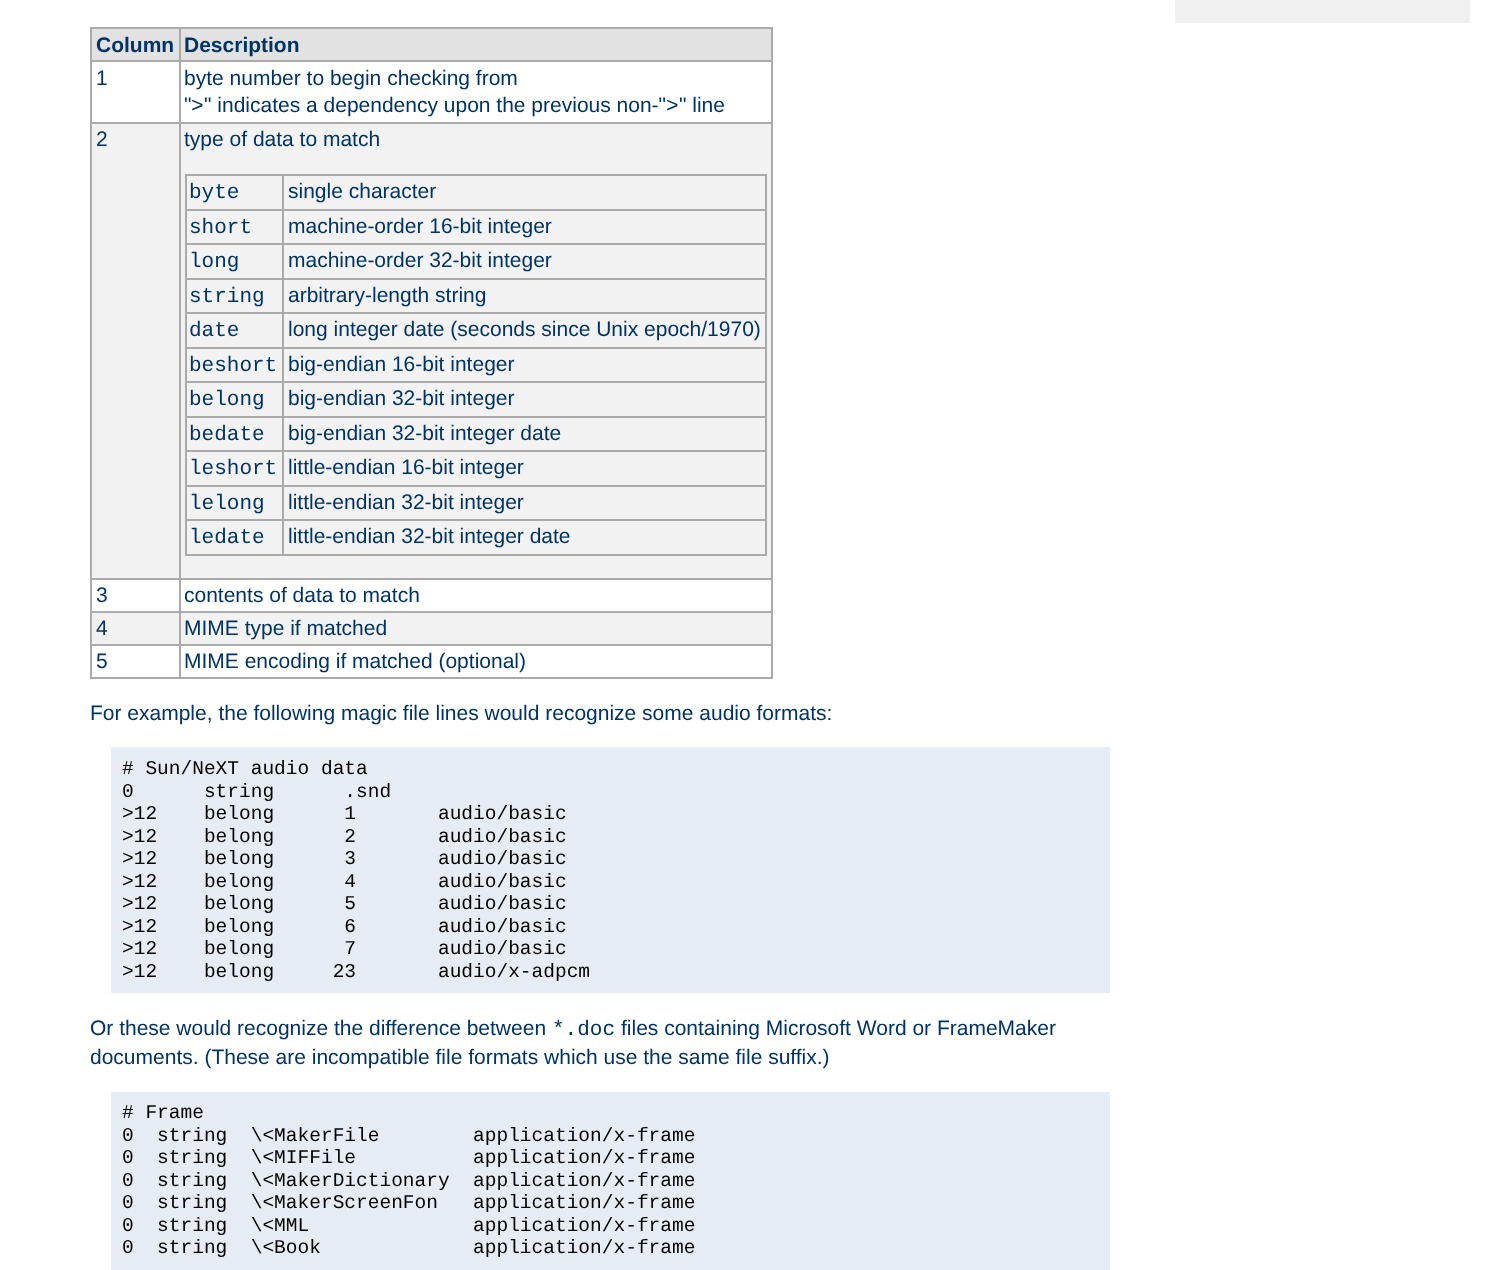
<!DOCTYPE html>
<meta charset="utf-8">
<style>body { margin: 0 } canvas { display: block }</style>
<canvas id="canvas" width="1490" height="1270"></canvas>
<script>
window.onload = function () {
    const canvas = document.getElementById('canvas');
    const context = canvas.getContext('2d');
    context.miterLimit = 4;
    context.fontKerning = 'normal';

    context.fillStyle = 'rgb(255, 255, 255)';
    context.fillRect(0, 0, 1490, 1270);
    context.fillStyle = 'rgb(240, 240, 240)';
    context.fillRect(1175, 0, 295, 23);
    context.fillStyle = 'rgb(170, 170, 170)';
    context.fillRect(90, 27, 683, 2);
    context.fillRect(771, 27, 2, 651);
    context.fillRect(90, 677, 683, 2);
    context.fillRect(90, 27, 2, 651);
    context.fillStyle = 'rgb(226, 226, 226)';
    context.fillRect(92, 29, 679, 31);
    context.fillStyle = 'rgb(170, 170, 170)';
    context.fillRect(90, 60, 683, 2);
    context.fillRect(179, 122, 594, 2);
    context.fillStyle = 'rgb(242, 242, 242)';
    context.fillRect(92, 124, 679, 454);
    context.fillStyle = 'rgb(170, 170, 170)';
    context.fillRect(179, 578, 594, 2);
    context.fillRect(179, 611, 594, 2);
    context.fillStyle = 'rgb(242, 242, 242)';
    context.fillRect(92, 613, 679, 31);
    context.fillStyle = 'rgb(170, 170, 170)';
    context.fillRect(179, 644, 594, 2);
    context.fillRect(179, 644, 2, 34);
    context.fillRect(90, 644, 90, 2);
    context.fillRect(179, 611, 2, 34);
    context.fillRect(90, 611, 90, 2);
    context.fillRect(179, 578, 2, 34);
    context.fillRect(90, 578, 90, 2);
    context.fillRect(179, 122, 2, 457);
    context.fillRect(90, 122, 90, 2);
    context.fillRect(179, 27, 2, 96);
    context.fillRect(185, 174, 582, 2);
    context.fillRect(765, 174, 2, 381);
    context.fillRect(185, 554, 582, 2);
    context.fillRect(185, 174, 2, 381);
    context.fillRect(282, 209, 485, 2);
    context.fillRect(282, 243, 485, 2);
    context.fillRect(282, 278, 485, 2);
    context.fillRect(282, 312, 485, 2);
    context.fillRect(282, 347, 485, 2);
    context.fillRect(282, 381, 485, 2);
    context.fillRect(282, 416, 485, 2);
    context.fillRect(282, 450, 485, 2);
    context.fillRect(282, 485, 485, 2);
    context.fillRect(282, 519, 485, 2);
    context.fillRect(282, 519, 2, 36);
    context.fillRect(185, 519, 99, 2);
    context.fillRect(282, 485, 2, 36);
    context.fillRect(185, 485, 99, 2);
    context.fillRect(282, 450, 2, 36);
    context.fillRect(185, 450, 99, 2);
    context.fillRect(282, 416, 2, 36);
    context.fillRect(185, 416, 99, 2);
    context.fillRect(282, 381, 2, 36);
    context.fillRect(185, 381, 99, 2);
    context.fillRect(282, 347, 2, 36);
    context.fillRect(185, 347, 99, 2);
    context.fillRect(282, 312, 2, 36);
    context.fillRect(185, 312, 99, 2);
    context.fillRect(282, 278, 2, 36);
    context.fillRect(185, 278, 99, 2);
    context.fillRect(282, 243, 2, 36);
    context.fillRect(185, 243, 99, 2);
    context.fillRect(282, 209, 2, 36);
    context.fillRect(185, 209, 99, 2);
    context.fillRect(282, 174, 2, 36);
    context.fillStyle = 'rgb(229, 236, 243)';
    context.fillRect(111, 747, 999, 246);
    context.fillRect(111, 1092, 999, 178);
    context.font = 'bold 21px Liberation Sans';
    context.fillStyle = 'rgb(0, 51, 102)';
    context.fillText('Column', 96, 52);
    context.fillText('Description', 184, 52);
    context.font = '21px Liberation Sans';
    context.fillText('1', 96, 85);
    context.fillText('byte number to begin checking from', 184, 85);
    context.fillText('"', 184, 112);
    context.font = '21px Liberation Mono';
    context.fillText('>', 191, 112);
    context.font = '21px Liberation Sans';
    context.fillText('" indicates a dependency upon the previous non-"', 204, 112);
    context.font = '21px Liberation Mono';
    context.fillText('>', 666, 112);
    context.font = '21px Liberation Sans';
    context.fillText('" line', 679, 112);
    context.fillText('2', 96, 146);
    context.fillText('type of data to match', 184, 146);
    context.font = '21px Liberation Mono';
    context.fillText('byte', 189, 198);
    context.font = '21px Liberation Sans';
    context.fillText('single character', 288, 198);
    context.font = '21px Liberation Mono';
    context.fillText('short', 189, 233);
    context.font = '21px Liberation Sans';
    context.fillText('machine-order 16-bit integer', 288, 233);
    context.font = '21px Liberation Mono';
    context.fillText('long', 189, 267);
    context.font = '21px Liberation Sans';
    context.fillText('machine-order 32-bit integer', 288, 267);
    context.font = '21px Liberation Mono';
    context.fillText('string', 189, 302);
    context.font = '21px Liberation Sans';
    context.fillText('arbitrary-length string', 288, 302);
    context.font = '21px Liberation Mono';
    context.fillText('date', 189, 336);
    context.font = '21px Liberation Sans';
    context.fillText('long integer date (seconds since Unix epoch/1970)', 288, 336);
    context.font = '21px Liberation Mono';
    context.fillText('beshort', 189, 371);
    context.font = '21px Liberation Sans';
    context.fillText('big-endian 16-bit integer', 288, 371);
    context.font = '21px Liberation Mono';
    context.fillText('belong', 189, 405);
    context.font = '21px Liberation Sans';
    context.fillText('big-endian 32-bit integer', 288, 405);
    context.font = '21px Liberation Mono';
    context.fillText('bedate', 189, 440);
    context.font = '21px Liberation Sans';
    context.fillText('big-endian 32-bit integer date', 288, 440);
    context.font = '21px Liberation Mono';
    context.fillText('leshort', 189, 474);
    context.font = '21px Liberation Sans';
    context.fillText('little-endian 16-bit integer', 288, 474);
    context.font = '21px Liberation Mono';
    context.fillText('lelong', 189, 509);
    context.font = '21px Liberation Sans';
    context.fillText('little-endian 32-bit integer', 288, 509);
    context.font = '21px Liberation Mono';
    context.fillText('ledate', 189, 543);
    context.font = '21px Liberation Sans';
    context.fillText('little-endian 32-bit integer date', 288, 543);
    context.fillText('3', 96, 602);
    context.fillText('contents of data to match', 184, 602);
    context.fillText('4', 96, 635);
    context.fillText('MIME type if matched', 184, 635);
    context.fillText('5', 96, 668);
    context.fillText('MIME encoding if matched (optional)', 184, 668);
    context.fillText('For example, the following magic file lines would recognize some audio formats:', 90, 720);
    context.font = '19.5px Liberation Mono';
    context.fillStyle = 'rgb(0, 0, 0)';
    context.fillText('# Sun/NeXT audio data', 122, 774);
    context.fillText('0      string      .snd', 122, 797);
    context.fillText('>12    belong      1       audio/basic', 122, 819);
    context.fillText('>12    belong      2       audio/basic', 122, 842);
    context.fillText('>12    belong      3       audio/basic', 122, 864);
    context.fillText('>12    belong      4       audio/basic', 122, 887);
    context.fillText('>12    belong      5       audio/basic', 122, 909);
    context.fillText('>12    belong      6       audio/basic', 122, 932);
    context.fillText('>12    belong      7       audio/basic', 122, 954);
    context.fillText('>12    belong     23       audio/x-adpcm', 122, 977);
    context.font = '21px Liberation Sans';
    context.fillStyle = 'rgb(0, 51, 102)';
    context.fillText('Or these would recognize the difference between', 90, 1035);
    context.font = '21px Liberation Mono';
    context.fillText('*.doc', 552, 1035);
    context.font = '21px Liberation Sans';
    context.fillText('files containing Microsoft Word or FrameMaker', 621, 1035);
    context.fillText('documents. (These are incompatible file formats which use the same file suffix.)', 90, 1064);
    context.font = '19.5px Liberation Mono';
    context.fillStyle = 'rgb(0, 0, 0)';
    context.fillText('# Frame', 122, 1118);
    context.fillText('0  string  \\<MakerFile        application/x-frame', 122, 1141);
    context.fillText('0  string  \\<MIFFile          application/x-frame', 122, 1163);
    context.fillText('0  string  \\<MakerDictionary  application/x-frame', 122, 1186);
    context.fillText('0  string  \\<MakerScreenFon   application/x-frame', 122, 1208);
    context.fillText('0  string  \\<MML              application/x-frame', 122, 1231);
    context.fillText('0  string  \\<Book             application/x-frame', 122, 1253);
};
</script>
